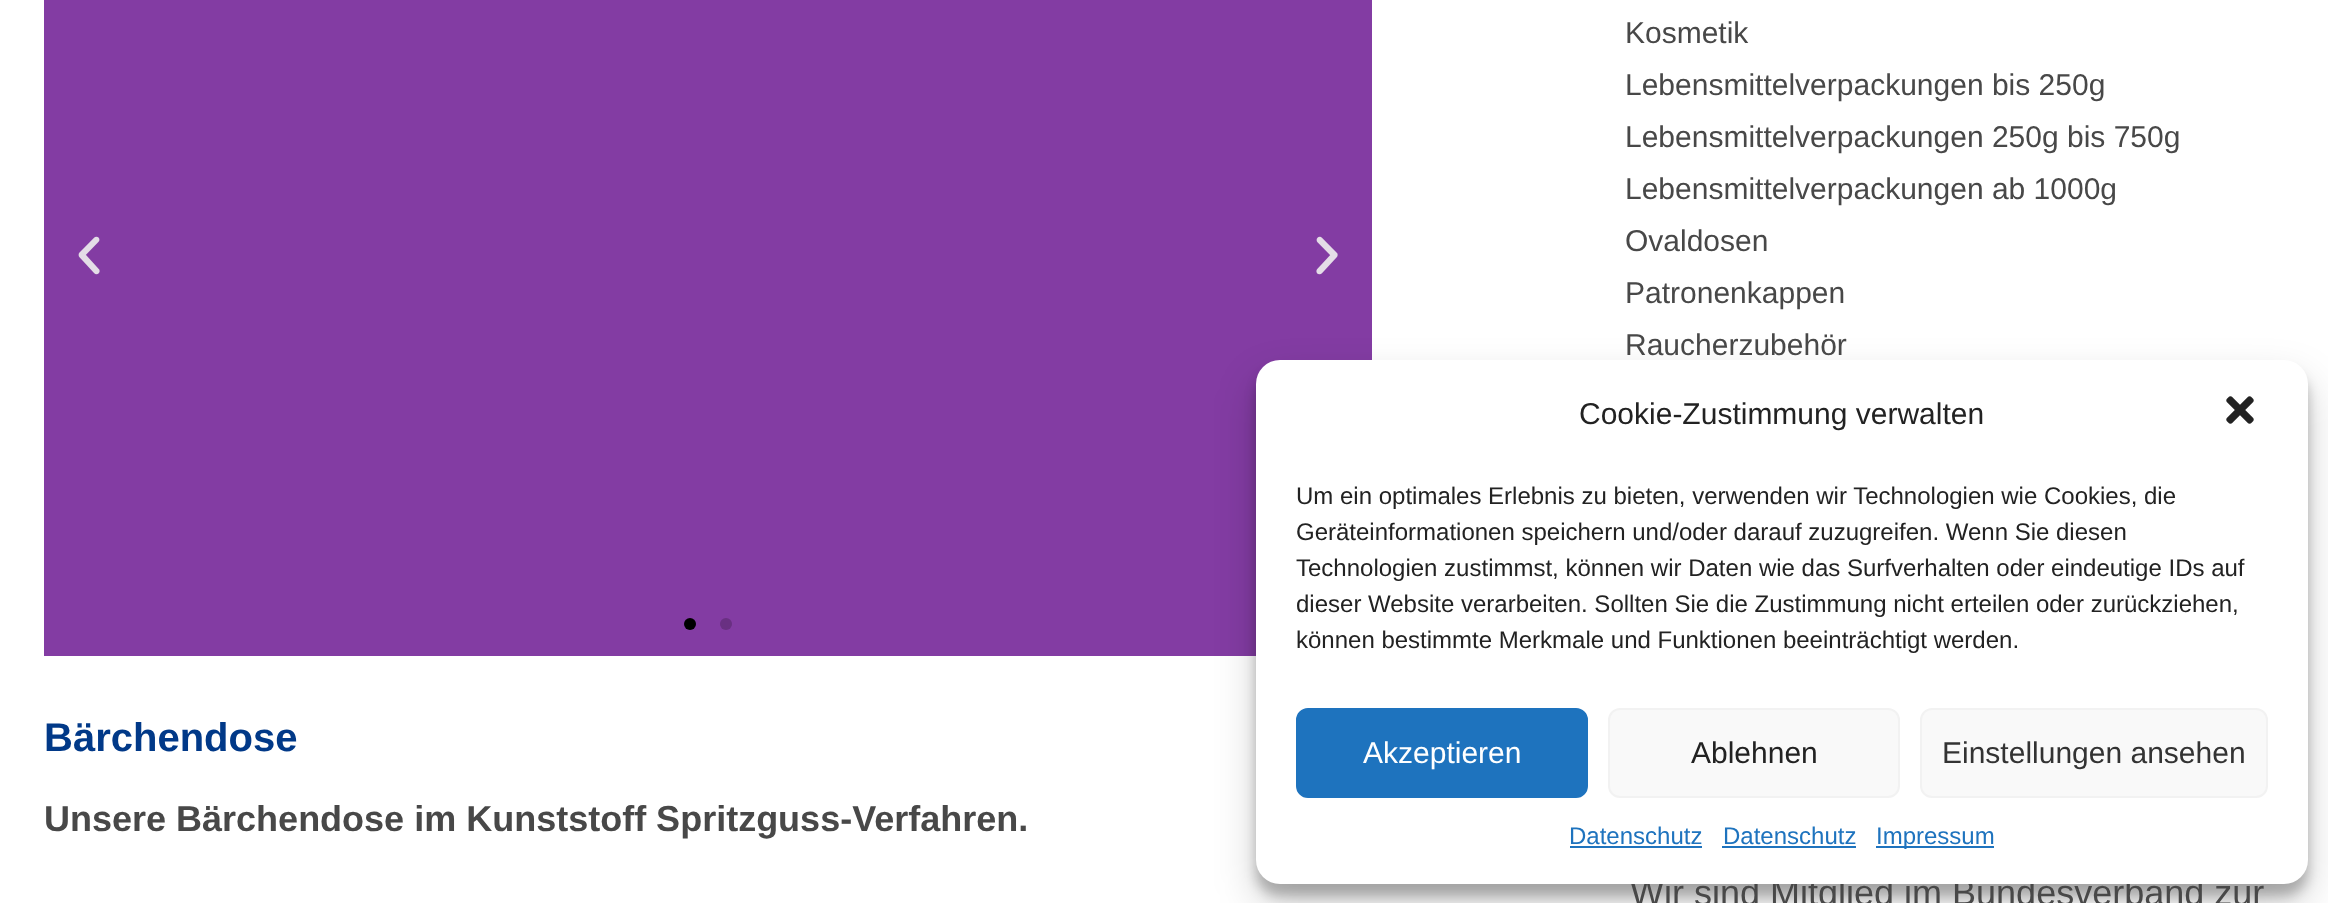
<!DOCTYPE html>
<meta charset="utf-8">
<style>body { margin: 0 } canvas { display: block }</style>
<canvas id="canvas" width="2328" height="903"></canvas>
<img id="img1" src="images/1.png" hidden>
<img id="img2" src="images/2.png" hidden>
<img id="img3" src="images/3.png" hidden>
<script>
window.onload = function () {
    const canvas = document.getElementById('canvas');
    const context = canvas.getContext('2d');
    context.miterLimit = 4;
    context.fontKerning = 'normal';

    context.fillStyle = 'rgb(255, 255, 255)';
    context.fillRect(0, 0, 2328, 903);
    context.fillStyle = 'rgb(131, 60, 163)';
    context.fillRect(44, 0, 1328, 656);
    context.drawImage(document.getElementById('img1'), 78, 236, 22, 39);
    context.drawImage(document.getElementById('img2'), 1316, 236, 22, 39);
    context.fillStyle = 'rgb(0, 0, 0)';
    context.beginPath();
    context.arc(690, 624, 6, 0, 2 * Math.PI);
    context.fill();
    context.fillStyle = 'rgb(105, 48, 130)';
    context.beginPath();
    context.arc(726, 624, 6, 0, 2 * Math.PI);
    context.fill();
    context.fillStyle = 'rgba(0, 0, 0, 0.23)';
    context.filter = 'blur(6px)';
    context.beginPath();
    context.roundRect(1256, 372, 1052, 524, 24);
    context.fill();
    context.filter = 'none';
    context.fillStyle = 'rgba(0, 0, 0, 0.19)';
    context.filter = 'blur(20px)';
    context.beginPath();
    context.roundRect(1256, 380, 1052, 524, 24);
    context.fill();
    context.filter = 'none';
    context.font = 'bold 40px Liberation Sans';
    context.fillStyle = 'rgb(1, 57, 136)';
    context.fillText('Bärchendose', 44, 751);
    context.font = 'bold 36px Liberation Sans';
    context.fillStyle = 'rgb(72, 72, 72)';
    context.fillText('Unsere Bärchendose im Kunststoff Spritzguss-Verfahren.', 44, 831);
    context.font = '30px Liberation Sans';
    context.fillText('Kosmetik', 1625, 43);
    context.fillText('Lebensmittelverpackungen bis 250g', 1625, 95);
    context.fillText('Lebensmittelverpackungen 250g bis 750g', 1625, 147);
    context.fillText('Lebensmittelverpackungen ab 1000g', 1625, 199);
    context.fillText('Ovaldosen', 1625, 251);
    context.fillText('Patronenkappen', 1625, 303);
    context.fillText('Raucherzubehör', 1625, 355);
    context.font = '36px Liberation Sans';
    context.fillText('Wir sind Mitglied im Bundesverband zur', 1630, 905);
    context.fillStyle = 'rgb(255, 255, 255)';
    context.beginPath();
    context.roundRect(1256, 360, 1052, 524, 24);
    context.fill();
    context.font = '30px Liberation Sans';
    context.fillStyle = 'rgb(34, 34, 34)';
    context.fillText('Cookie-Zustimmung verwalten', 1579, 424);
    context.drawImage(document.getElementById('img3'), 2226, 396, 28, 28);
    context.font = '24px Liberation Sans';
    context.fillText('Um ein optimales Erlebnis zu bieten, verwenden wir Technologien wie Cookies, die', 1296, 504);
    context.fillText('Geräteinformationen speichern und/oder darauf zuzugreifen. Wenn Sie diesen', 1296, 540);
    context.fillText('Technologien zustimmst, können wir Daten wie das Surfverhalten oder eindeutige IDs auf', 1296, 576);
    context.fillText('dieser Website verarbeiten. Sollten Sie die Zustimmung nicht erteilen oder zurückziehen,', 1296, 612);
    context.fillText('können bestimmte Merkmale und Funktionen beeinträchtigt werden.', 1296, 648);
    context.fillStyle = 'rgb(30, 115, 190)';
    context.beginPath();
    context.roundRect(1297, 709, 290, 88, 11);
    context.fill();
    context.strokeStyle = 'rgb(30, 115, 190)';
    context.lineWidth = 2;
    context.stroke();
    context.font = '30px Liberation Sans';
    context.fillStyle = 'rgb(255, 255, 255)';
    context.fillText('Akzeptieren', 1363, 763);
    context.fillStyle = 'rgb(249, 249, 249)';
    context.beginPath();
    context.roundRect(1609, 709, 290, 88, 11);
    context.fill();
    context.strokeStyle = 'rgb(242, 242, 242)';
    context.stroke();
    context.fillStyle = 'rgb(34, 34, 34)';
    context.fillText('Ablehnen', 1691, 763);
    context.fillStyle = 'rgb(249, 249, 249)';
    context.beginPath();
    context.roundRect(1921, 709, 346, 88, 11);
    context.fill();
    context.stroke();
    context.fillStyle = 'rgb(51, 51, 51)';
    context.fillText('Einstellungen ansehen', 1942, 763);
    context.font = '24px Liberation Sans';
    context.fillStyle = 'rgb(30, 115, 190)';
    context.fillText('Datenschutz', 1569, 844);
    context.fillRect(1570, 846, 132, 2);
    context.fillText('Datenschutz', 1723, 844);
    context.fillRect(1722, 846, 134, 2);
    context.fillRect(1876, 846, 118, 2);
    context.fillText('Impressum', 1876, 844);
};
</script>
